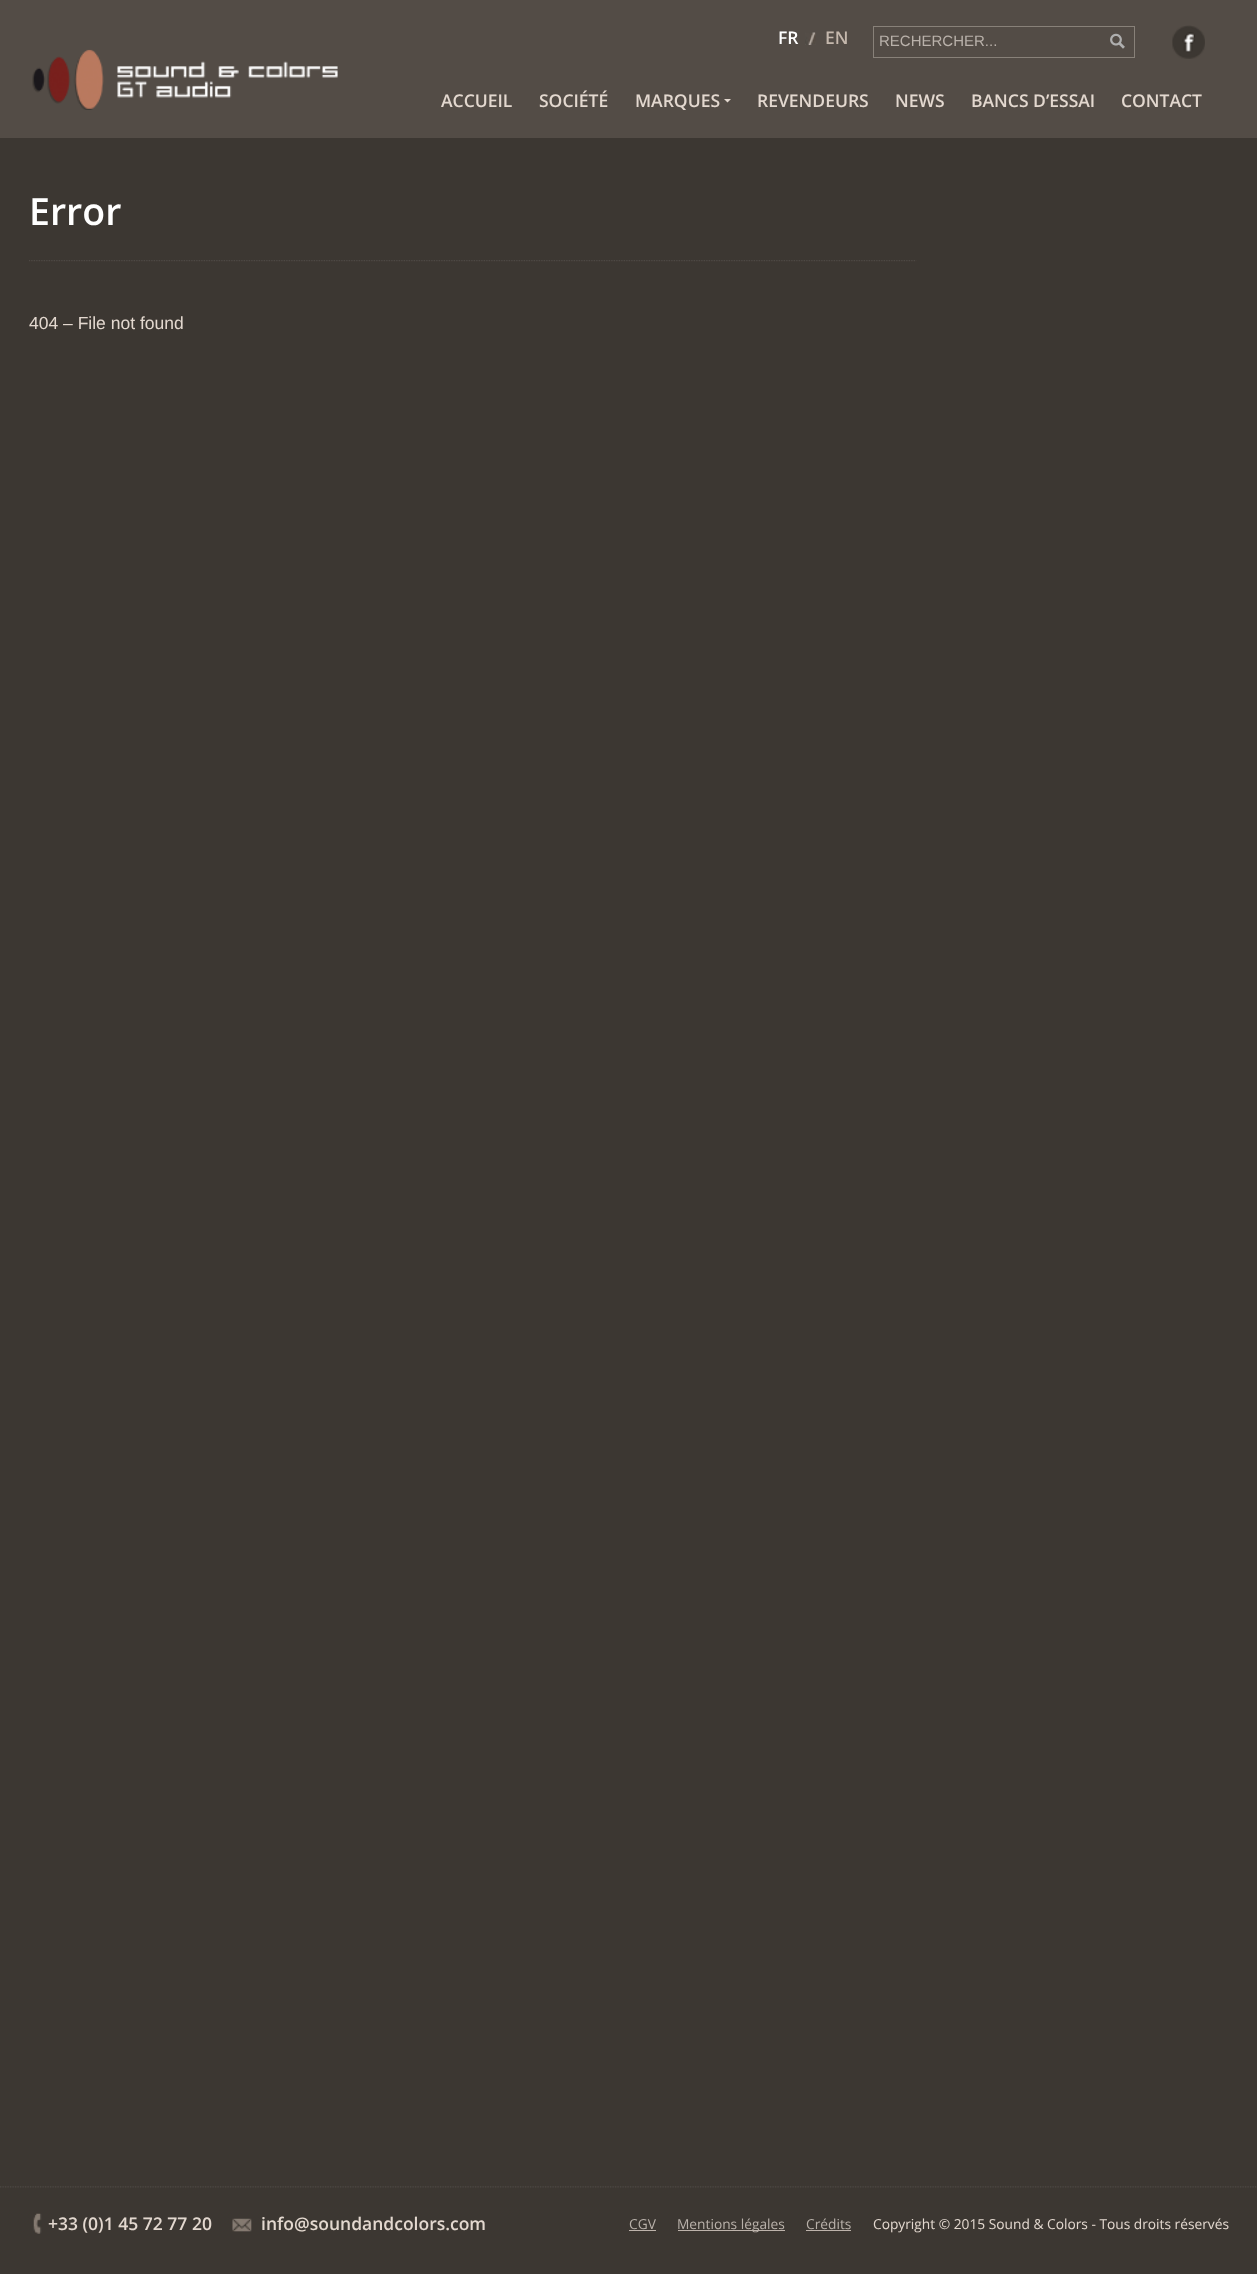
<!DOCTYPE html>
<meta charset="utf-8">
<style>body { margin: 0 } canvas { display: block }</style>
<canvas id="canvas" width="1257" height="2274"></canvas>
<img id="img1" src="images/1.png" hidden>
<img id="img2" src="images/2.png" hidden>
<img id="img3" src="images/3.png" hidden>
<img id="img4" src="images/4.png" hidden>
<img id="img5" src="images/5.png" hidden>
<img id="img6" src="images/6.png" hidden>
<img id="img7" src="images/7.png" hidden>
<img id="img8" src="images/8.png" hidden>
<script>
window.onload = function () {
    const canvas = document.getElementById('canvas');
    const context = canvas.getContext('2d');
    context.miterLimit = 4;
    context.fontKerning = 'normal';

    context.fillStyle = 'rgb(60, 55, 50)';
    context.fillRect(0, 0, 1257, 2274);
    context.fillStyle = 'rgb(83, 76, 70)';
    context.fillRect(0, 0, 1257, 138);
    context.drawImage(document.getElementById('img1'), 32, 49, 306, 61);
    context.drawImage(document.getElementById('img2'), 805, 32, 11, 13);
    context.strokeStyle = 'rgb(136, 129, 121)';
    context.strokeRect(873.5, 26.5, 261, 31);
    context.drawImage(document.getElementById('img3'), 1110, 33, 15, 16);
    context.drawImage(document.getElementById('img4'), 1172, 25, 33, 34);
    context.fillStyle = 'rgb(227, 216, 207)';
    context.beginPath();
    context.moveTo(724, 99);
    context.lineTo(731, 99);
    context.lineTo(727.5, 102.5);
    context.closePath();
    context.fill();
    context.drawImage(document.getElementById('img5'), 29, 260, 888, 2);
    context.drawImage(document.getElementById('img6'), 0, 2186, 1257, 2);
    context.drawImage(document.getElementById('img7'), 33, 2213, 9, 21);
    context.drawImage(document.getElementById('img8'), 232, 2218, 20, 14);
    context.fillStyle = 'rgb(189, 179, 171)';
    context.fillRect(629, 2230, 27, 1);
    context.fillRect(678, 2230, 107, 1);
    context.fillRect(806, 2230, 45, 1);
    context.font = '600 17.5px Open Sans';
    context.fillStyle = 'rgb(255, 255, 255)';
    context.fillText('FR', 778, 44);
    context.fillStyle = 'rgb(197, 184, 173)';
    context.fillText('EN', 825, 44);
    context.font = '15px Liberation Sans';
    context.fillStyle = 'rgb(185, 177, 170)';
    context.fillText('RECHERCHER...', 879, 46);
    context.font = '600 17.5px Open Sans';
    context.fillStyle = 'rgb(227, 216, 207)';
    context.fillText('ACCUEIL', 441, 107);
    context.fillText('SOCIÉTÉ', 539, 107);
    context.fillText('MARQUES', 635, 107);
    context.fillText('REVENDEURS', 757, 107);
    context.fillText('NEWS', 895, 107);
    context.fillText('BANCS D’ESSAI', 971, 107);
    context.fillText('CONTACT', 1121, 107);
    context.font = '600 37.5px Open Sans';
    context.fillStyle = 'rgb(255, 255, 255)';
    context.fillText('Error', 29, 225);
    context.font = '17.5px Liberation Sans';
    context.fillStyle = 'rgb(227, 216, 207)';
    context.fillText('404 – File not found', 29, 329);
    context.font = '600 17.5px Open Sans';
    context.fillText('+33 (0)1 45 72 77 20', 48, 2230);
    context.fillText('info@soundandcolors.com', 261, 2230);
    context.font = '13.75px Open Sans';
    context.fillStyle = 'rgb(185, 177, 170)';
    context.fillText('CGV', 629, 2229);
    context.fillText('Mentions légales', 677, 2229);
    context.fillText('Crédits', 806, 2229);
    context.fillStyle = 'rgb(227, 216, 207)';
    context.fillText('Copyright © 2015 Sound & Colors - Tous droits réservés', 873, 2229);
};
</script>
